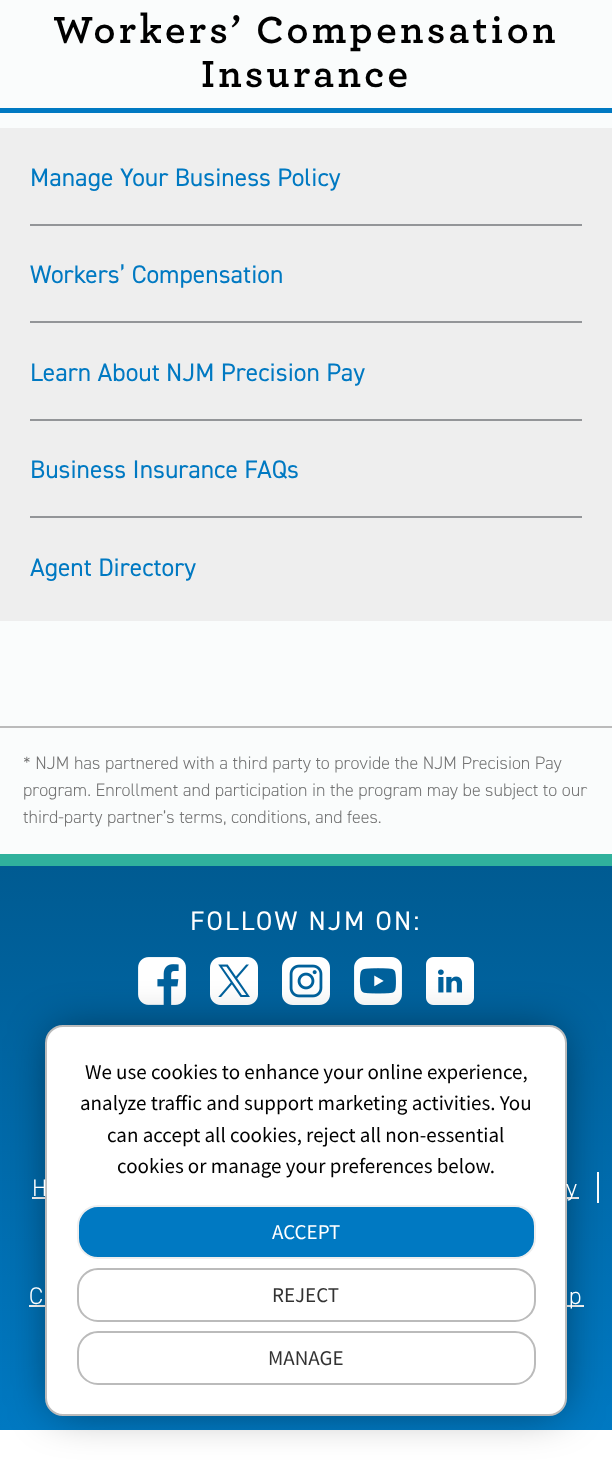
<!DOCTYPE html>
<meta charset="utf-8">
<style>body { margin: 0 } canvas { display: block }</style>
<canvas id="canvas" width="612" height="1461"></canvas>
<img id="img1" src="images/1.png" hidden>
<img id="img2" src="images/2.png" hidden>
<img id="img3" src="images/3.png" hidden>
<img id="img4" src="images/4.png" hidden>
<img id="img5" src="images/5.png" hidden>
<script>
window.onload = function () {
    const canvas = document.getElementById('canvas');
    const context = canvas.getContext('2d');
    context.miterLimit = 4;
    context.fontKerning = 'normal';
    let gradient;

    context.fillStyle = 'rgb(255, 255, 255)';
    context.fillRect(0, 0, 612, 1461);
    context.fillStyle = 'rgb(250, 252, 252)';
    context.fillRect(0, 0, 612, 854);
    context.fillStyle = 'rgb(0, 121, 194)';
    context.fillRect(0, 108, 612, 5);
    context.fillStyle = 'rgb(238, 238, 238)';
    context.fillRect(0, 128, 612, 493);
    context.fillStyle = 'rgb(147, 149, 152)';
    context.fillRect(30, 224, 552, 2);
    context.fillRect(30, 321, 552, 2);
    context.fillRect(30, 419, 552, 2);
    context.fillRect(30, 516, 552, 2);
    context.fillStyle = 'rgb(187, 187, 187)';
    context.fillRect(0, 726, 612, 2);
    gradient = context.createLinearGradient(306, 866, 306, 1430);
    gradient.addColorStop(0, 'rgb(0, 91, 146)');
    gradient.addColorStop(1, 'rgb(0, 121, 194)');
    context.fillStyle = gradient;
    context.fillRect(0, 866, 612, 564);
    context.fillStyle = 'rgb(48, 177, 156)';
    context.fillRect(0, 854, 612, 12);
    context.drawImage(document.getElementById('img1'), 138, 957, 48, 48);
    context.drawImage(document.getElementById('img2'), 210, 957, 48, 48);
    context.drawImage(document.getElementById('img3'), 282, 957, 48, 48);
    context.drawImage(document.getElementById('img4'), 354, 957, 48, 48);
    context.drawImage(document.getElementById('img5'), 426, 957, 48, 48);
    context.fillStyle = 'rgb(255, 255, 255)';
    context.fillRect(32, 1197, 13, 2);
    context.fillRect(597, 1172, 2, 31);
    context.fillRect(567, 1197, 12, 2);
    context.fillRect(29, 1305, 16, 2);
    context.fillRect(567, 1305, 17, 2);
    context.fillStyle = 'rgba(0, 0, 0, 0.5)';
    context.filter = 'blur(22.5px)';
    context.beginPath();
    context.roundRect(53, 1032, 507, 377, 11);
    context.fill();
    context.filter = 'none';
    context.fillStyle = 'rgb(255, 255, 255)';
    context.beginPath();
    context.roundRect(46, 1026, 520, 389, 17);
    context.fill();
    context.strokeStyle = 'rgb(187, 187, 187)';
    context.lineWidth = 2;
    context.stroke();
    context.fillStyle = 'rgb(0, 121, 194)';
    context.beginPath();
    context.roundRect(78, 1206, 457, 52, 20);
    context.fill();
    context.strokeStyle = 'rgb(238, 238, 238)';
    context.stroke();
    context.beginPath();
    context.roundRect(78, 1269, 457, 52, 20);
    context.strokeStyle = 'rgb(187, 187, 187)';
    context.stroke();
    context.beginPath();
    context.roundRect(78, 1332, 457, 52, 20);
    context.stroke();
    context.letterSpacing = '3px';
    context.font = 'bold 36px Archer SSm';
    context.fillStyle = 'rgb(0, 0, 0)';
    context.fillText('Workers’ Compensation', 53, 43);
    context.fillText('Insurance', 201, 87);
    context.letterSpacing = '0px';
    context.font = '25.5px "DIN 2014"';
    context.fillStyle = 'rgb(0, 121, 194)';
    context.fillText('Manage Your Business Policy', 30, 186);
    context.fillText('Workers’ Compensation', 30, 283);
    context.fillText('Learn About NJM Precision Pay', 30, 381);
    context.fillText('Business Insurance FAQs', 30, 478);
    context.fillText('Agent Directory', 30, 576);
    context.font = '300 18px "DIN 2014"';
    context.fillStyle = 'rgb(115, 115, 115)';
    context.fillText('* NJM has partnered with a third party to provide the NJM Precision Pay', 23, 769);
    context.fillText('program. Enrollment and participation in the program may be subject to our', 23, 796);
    context.fillText('third-party partner’s terms, conditions, and fees.', 23, 823);
    context.letterSpacing = '2.25px';
    context.font = '27px "DIN 2014"';
    context.fillStyle = 'rgb(255, 255, 255)';
    context.fillText('FOLLOW NJM ON:', 190, 930);
    context.letterSpacing = '2px';
    context.font = '300 24px "DIN 2014"';
    context.fillText('H', 32, 1196);
    context.fillText('y', 566, 1196);
    context.fillText('C', 29, 1304);
    context.fillText('p', 569, 1304);
    context.letterSpacing = '0px';
    context.font = '21px Source Sans Pro';
    context.fillStyle = 'rgb(0, 0, 0)';
    context.fillText('We use cookies to enhance your online experience,', 85, 1079);
    context.fillText('analyze traffic and support marketing activities. You', 80, 1110);
    context.fillText('can accept all cookies, reject all non-essential', 107, 1142);
    context.fillText('cookies or manage your preferences below.', 117, 1173);
    context.fillStyle = 'rgb(255, 255, 255)';
    context.fillText('ACCEPT', 272, 1239);
    context.fillStyle = 'rgb(51, 51, 51)';
    context.fillText('REJECT', 272, 1302);
    context.fillText('MANAGE', 268, 1365);
};
</script>
